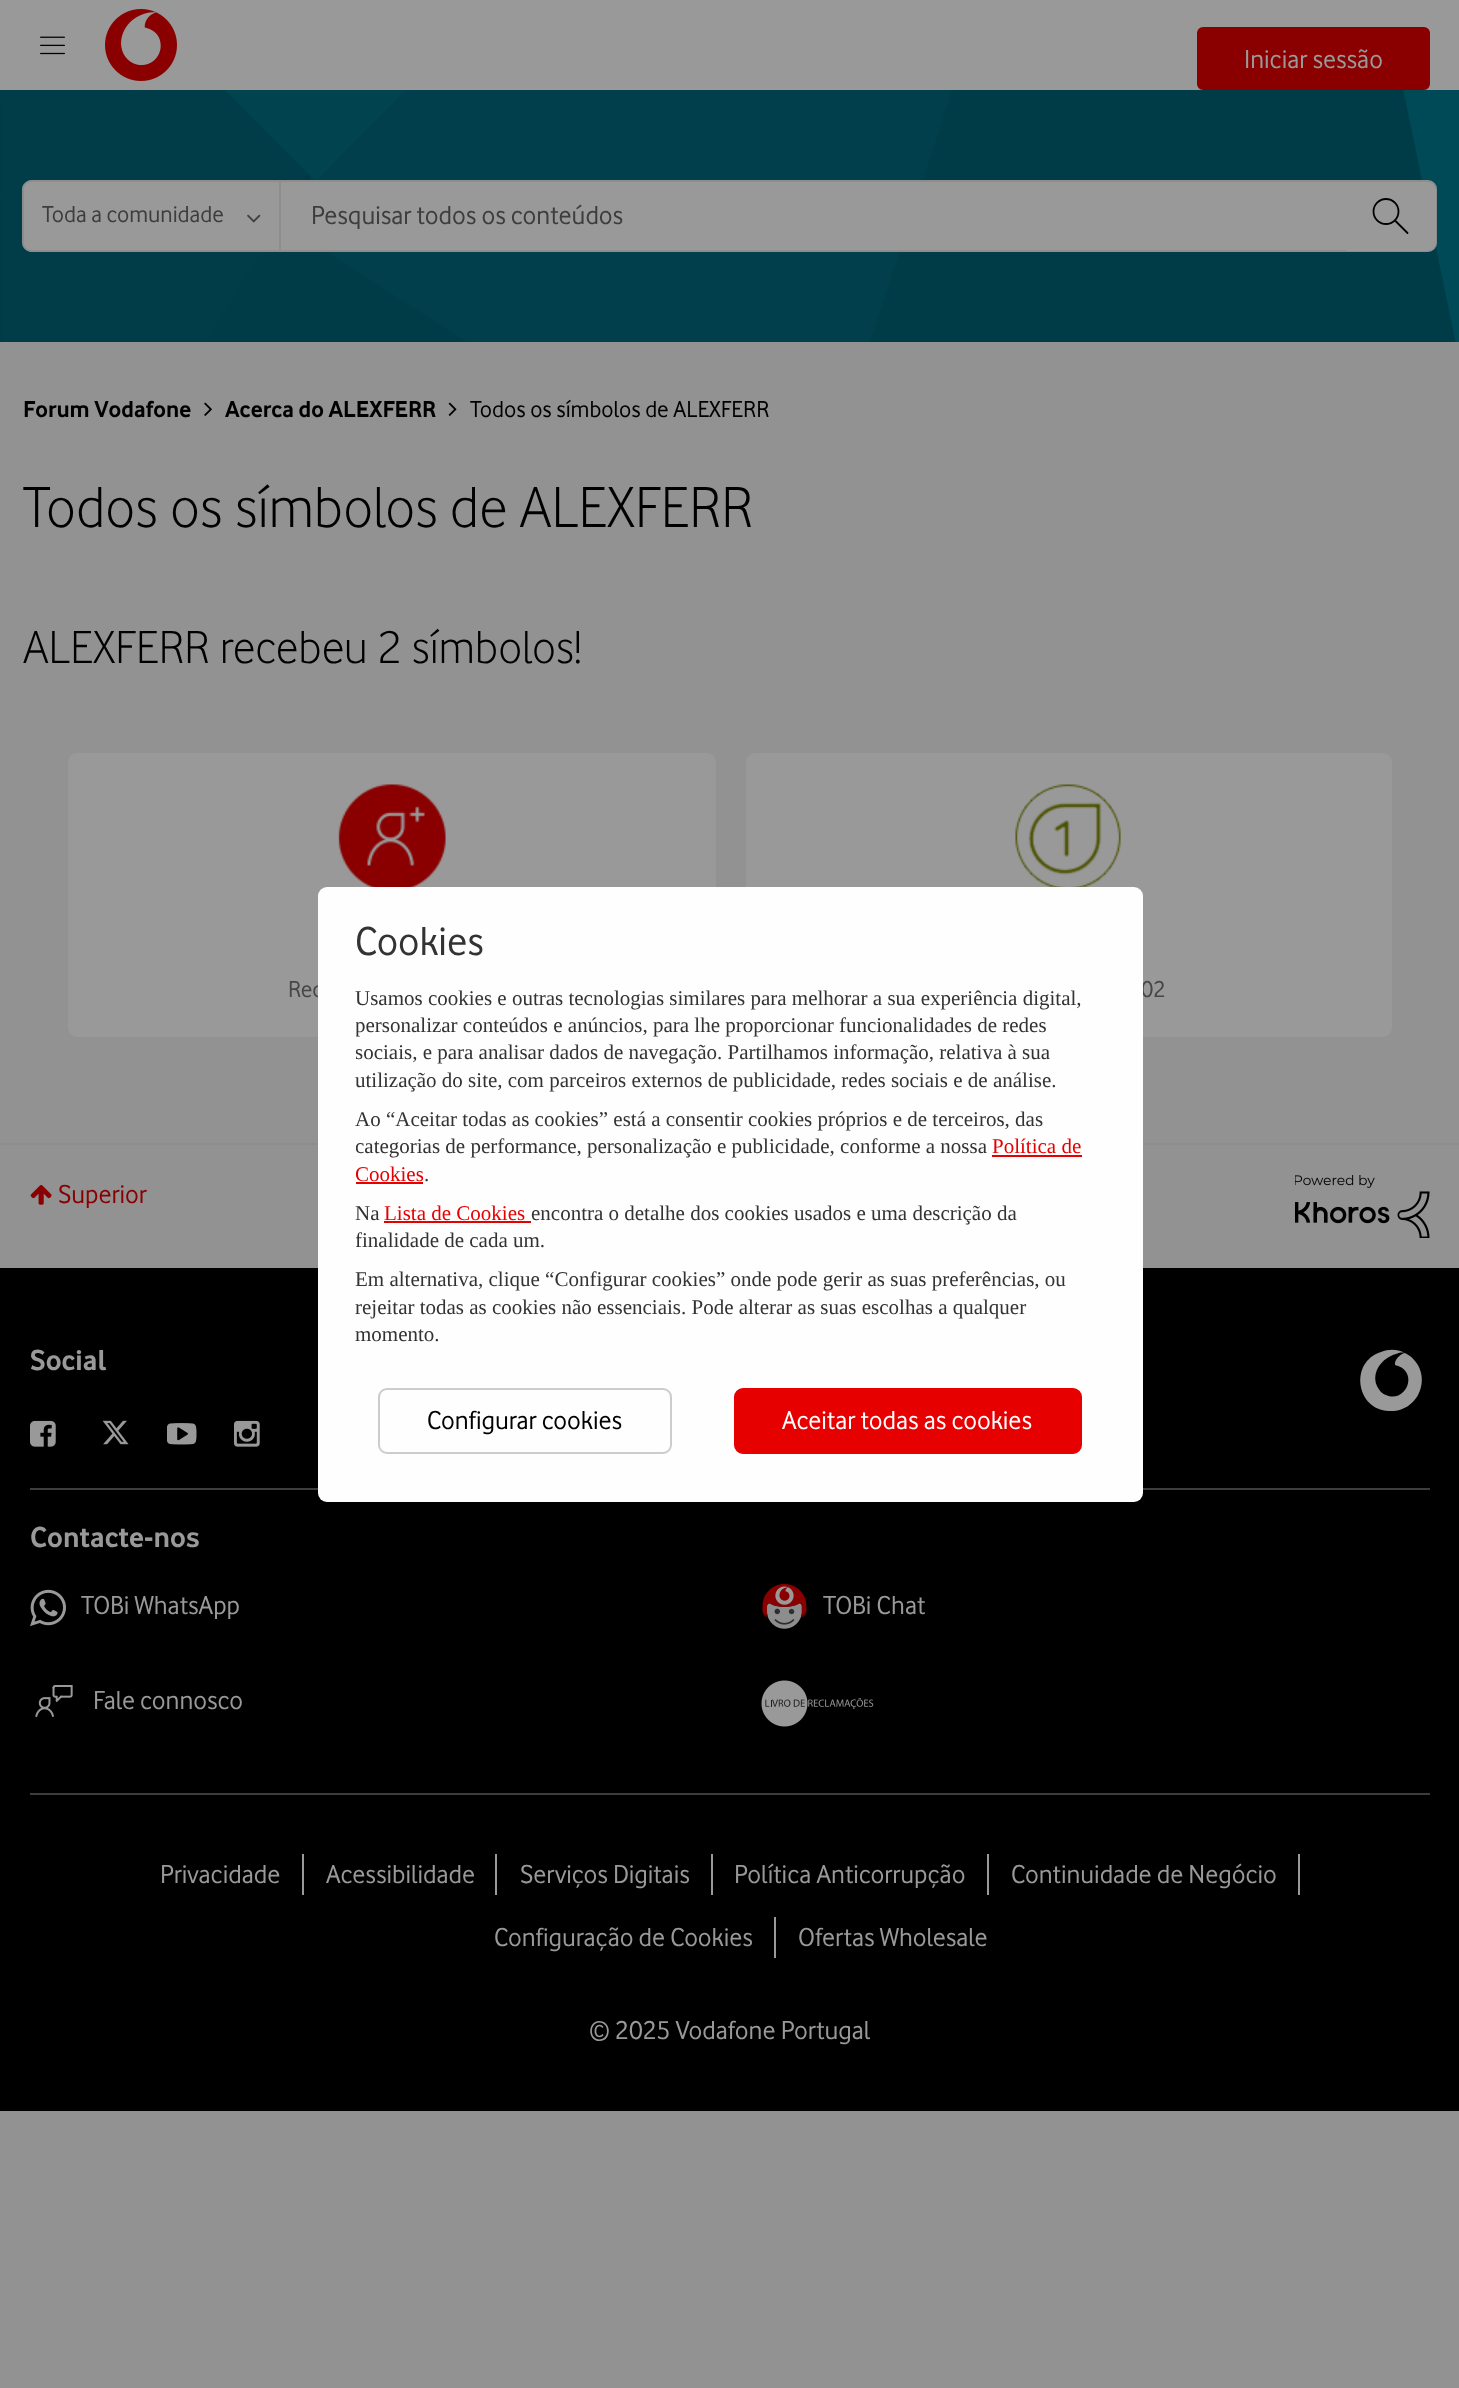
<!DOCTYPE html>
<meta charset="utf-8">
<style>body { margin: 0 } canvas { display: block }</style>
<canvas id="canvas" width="1459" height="2388"></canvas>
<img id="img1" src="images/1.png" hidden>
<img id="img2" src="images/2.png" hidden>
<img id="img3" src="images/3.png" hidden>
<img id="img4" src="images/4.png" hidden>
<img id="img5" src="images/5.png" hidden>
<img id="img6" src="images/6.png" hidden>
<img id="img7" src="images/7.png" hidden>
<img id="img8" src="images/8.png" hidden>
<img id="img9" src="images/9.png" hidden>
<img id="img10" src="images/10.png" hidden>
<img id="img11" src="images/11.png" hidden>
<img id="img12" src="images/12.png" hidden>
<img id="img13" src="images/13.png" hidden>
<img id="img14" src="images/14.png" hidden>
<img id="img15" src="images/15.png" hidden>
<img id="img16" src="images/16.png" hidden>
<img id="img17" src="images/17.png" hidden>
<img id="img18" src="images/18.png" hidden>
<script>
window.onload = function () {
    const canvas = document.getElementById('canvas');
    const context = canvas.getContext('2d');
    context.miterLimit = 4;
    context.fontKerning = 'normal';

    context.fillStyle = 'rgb(146, 146, 146)';
    context.fillRect(0, 0, 1459, 2388);
    context.fillStyle = 'rgb(153, 153, 153)';
    context.fillRect(0, 0, 1459, 90);
    context.drawImage(document.getElementById('img1'), 40, 36, 25, 19);
    context.drawImage(document.getElementById('img2'), 105, 9, 72, 72);
    context.fillStyle = 'rgb(138, 0, 0)';
    context.beginPath();
    context.roundRect(1198, 28, 231, 61, 5);
    context.fill();
    context.strokeStyle = 'rgb(138, 0, 0)';
    context.lineWidth = 2;
    context.stroke();
    context.drawImage(document.getElementById('img3'), 0, 90, 1459, 252);
    context.fillStyle = 'rgb(153, 153, 153)';
    context.beginPath();
    context.roundRect(23, 180, 256, 72, [9, 0, 0, 9]);
    context.fill();
    context.fillStyle = 'rgb(141, 141, 141)';
    context.beginPath();
    context.moveTo(32, 180);
    context.lineTo(279, 180);
    context.lineTo(279, 252);
    context.lineTo(32, 252);
    context.bezierCurveTo(27, 252, 22, 248, 22, 243);
    context.lineTo(22, 189);
    context.bezierCurveTo(22, 184, 27, 180, 32, 180);
    context.closePath();
    context.moveTo(32, 182);
    context.lineTo(279, 182);
    context.lineTo(279, 250);
    context.lineTo(32, 250);
    context.bezierCurveTo(27, 250, 24, 247, 24, 243);
    context.lineTo(24, 189);
    context.bezierCurveTo(24, 185, 27, 182, 32, 182);
    context.closePath();
    context.fill('evenodd');
    context.drawImage(document.getElementById('img4'), 247, 214, 14, 9);
    context.fillStyle = 'rgb(153, 153, 153)';
    context.beginPath();
    context.roundRect(280, 181, 1156, 70, [0, 8, 8, 0]);
    context.fill();
    context.strokeStyle = 'rgb(141, 141, 141)';
    context.stroke();
    context.beginPath();
    context.roundRect(1346, 182, 90, 69, [0, 9, 9, 0]);
    context.fill();
    context.beginPath();
    context.moveTo(1395, 220.5);
    context.lineTo(1407.5, 233);
    context.strokeStyle = 'rgb(0, 0, 0)';
    context.lineWidth = 1.8;
    context.lineCap = 'round';
    context.lineJoin = 'round';
    context.stroke();
    context.beginPath();
    context.arc(1386, 211.5, 12.5, 0, 2 * Math.PI);
    context.stroke();
    context.drawImage(document.getElementById('img5'), 204, 402, 8, 14);
    context.drawImage(document.getElementById('img6'), 448, 402, 9, 14);
    context.beginPath();
    context.roundRect(68, 753, 648, 284, 9);
    context.fill();
    context.drawImage(document.getElementById('img7'), 338, 784, 108, 103);
    context.beginPath();
    context.roundRect(746, 753, 646, 284, 9);
    context.fill();
    context.drawImage(document.getElementById('img8'), 1015, 784, 106, 103);
    context.fillStyle = 'rgb(141, 141, 141)';
    context.fillRect(0, 1143, 1459, 2);
    context.drawImage(document.getElementById('img9'), 30, 1185, 22, 20);
    context.drawImage(document.getElementById('img10'), 1295, 1175, 135, 63);
    context.fillStyle = 'rgb(0, 0, 0)';
    context.fillRect(0, 1268, 1459, 843);
    context.drawImage(document.getElementById('img11'), 30, 1420, 26, 27);
    context.drawImage(document.getElementById('img12'), 102, 1420, 27, 25);
    context.drawImage(document.getElementById('img13'), 167, 1423, 30, 22);
    context.drawImage(document.getElementById('img14'), 234, 1420, 26, 27);
    context.fillStyle = 'rgb(153, 153, 153)';
    context.beginPath();
    context.moveTo(1405, 1353);
    context.bezierCurveTo(1400, 1354, 1394, 1360, 1395, 1365);
    context.bezierCurveTo(1420, 1371, 1406, 1404, 1386, 1395);
    context.bezierCurveTo(1382, 1394, 1379, 1390, 1377, 1386);
    context.bezierCurveTo(1371, 1372, 1382, 1358, 1396, 1354);
    context.bezierCurveTo(1398, 1353, 1402, 1352, 1405, 1353);
    context.bezierCurveTo(1397, 1349, 1389, 1349, 1381, 1352);
    context.bezierCurveTo(1349, 1362, 1356, 1410, 1389, 1411);
    context.bezierCurveTo(1419, 1413, 1434, 1375, 1410, 1356);
    context.closePath();
    context.fill();
    context.fillStyle = 'rgb(61, 61, 61)';
    context.fillRect(30, 1488, 1400, 2);
    context.drawImage(document.getElementById('img15'), 30, 1589, 36, 38);
    context.drawImage(document.getElementById('img16'), 762, 1584, 45, 45);
    context.drawImage(document.getElementById('img17'), 35, 1685, 38, 32);
    context.drawImage(document.getElementById('img18'), 761, 1680, 113, 47);
    context.fillRect(30, 1793, 1400, 2);
    context.fillStyle = 'rgb(153, 153, 153)';
    context.fillRect(302, 1854, 2, 41);
    context.fillRect(495, 1854, 2, 41);
    context.fillRect(711, 1854, 2, 41);
    context.fillRect(987, 1854, 2, 41);
    context.fillRect(1298, 1854, 2, 41);
    context.fillRect(774, 1917, 2, 41);
    context.font = '27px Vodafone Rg';
    context.fillText('Iniciar sessão', 1244, 68);
    context.font = '24px Vodafone Rg';
    context.fillStyle = 'rgb(61, 61, 61)';
    context.fillText('Toda a comunidade', 42, 222);
    context.font = '27px Vodafone Rg';
    context.fillText('Pesquisar todos os conteúdos', 311, 224);
    context.font = 'bold 24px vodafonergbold';
    context.fillStyle = 'rgb(0, 0, 0)';
    context.fillText('Forum Vodafone', 23, 417);
    context.fillText('Acerca do ALEXFERR', 225, 417);
    context.font = '24px Vodafone Rg';
    context.fillText('Todos os símbolos de ALEXFERR', 470, 417);
    context.font = '60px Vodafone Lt';
    context.fillText('Todos os símbolos de ALEXFERR', 23, 527);
    context.font = '48px Vodafone Lt';
    context.fillText('ALEXFERR recebeu 2 símbolos!', 23, 663);
    context.font = '24px Vodafone Rg';
    context.fillStyle = 'rgb(70, 70, 70)';
    context.fillText('Rec', 288, 997);
    context.fillText('02', 1141, 997);
    context.font = '27px Vodafone Rg';
    context.fillStyle = 'rgb(138, 0, 0)';
    context.fillText('Superior', 58, 1203);
    context.font = 'bold 30px vodafonergbold';
    context.fillStyle = 'rgb(153, 153, 153)';
    context.fillText('Social', 30, 1370);
    context.fillText('Contacte-nos', 30, 1547);
    context.font = '27px Vodafone Rg';
    context.fillText('TOBi WhatsApp', 81, 1614);
    context.fillText('TOBi Chat', 823, 1614);
    context.fillText('Fale connosco', 93, 1709);
    context.fillText('Privacidade', 160, 1883);
    context.fillText('Acessibilidade', 326, 1883);
    context.fillText('Serviços Digitais', 520, 1883);
    context.fillText('Política Anticorrupção', 734, 1883);
    context.fillText('Continuidade de Negócio', 1011, 1883);
    context.fillText('Configuração de Cookies', 494, 1946);
    context.fillText('Ofertas Wholesale', 798, 1946);
    context.fillText('© 2025 Vodafone Portugal', 589, 2039);
    context.fillStyle = 'rgb(254, 254, 254)';
    context.beginPath();
    context.roundRect(318, 887, 825, 615, 9);
    context.fill();
    context.font = '42px Vodafone Rg';
    context.fillStyle = 'rgb(51, 51, 51)';
    context.fillText('Cookies', 355, 955);
    context.font = '21px Liberation Serif';
    context.fillText('Usamos cookies e outras tecnologias similares para melhorar a sua experiência digital,', 355, 1005);
    context.save();
    context.beginPath();
    context.rect(356, 911, 750, 438);
    context.clip();
    context.fillText('personalizar conteúdos e anúncios, para lhe proporcionar funcionalidades de redes', 355, 1032);
    context.fillText('sociais, e para analisar dados de navegação. Partilhamos informação, relativa à sua', 355, 1059);
    context.restore();
    context.fillText('utilização do site, com parceiros externos de publicidade, redes sociais e de análise.', 355, 1087);
    context.fillText('Ao “Aceitar todas as cookies” está a consentir cookies próprios e de terceiros, das', 355, 1126);
    context.save();
    context.beginPath();
    context.rect(356, 911, 750, 438);
    context.clip();
    context.fillText('categorias de performance, personalização e publicidade, conforme a nossa', 355, 1153);
    context.restore();
    context.fillStyle = 'rgb(230, 0, 0)';
    context.fillText('Política de', 992, 1153);
    context.fillRect(992, 1155, 90, 2);
    context.save();
    context.beginPath();
    context.rect(356, 911, 750, 438);
    context.clip();
    context.fillText('Cookies', 355, 1181);
    context.restore();
    context.fillRect(356, 1182, 67, 2);
    context.fillStyle = 'rgb(51, 51, 51)';
    context.fillText('.', 424, 1181);
    context.fillText('Na', 355, 1220);
    context.fillStyle = 'rgb(230, 0, 0)';
    context.fillText('Lista de Cookies', 384, 1220);
    context.fillRect(384, 1221, 147, 2);
    context.fillStyle = 'rgb(51, 51, 51)';
    context.fillText('encontra o detalhe dos cookies usados e uma descrição da', 531, 1220);
    context.save();
    context.beginPath();
    context.rect(356, 911, 750, 438);
    context.clip();
    context.fillText('finalidade de cada um.', 355, 1247);
    context.restore();
    context.fillText('Em alternativa, clique “Configurar cookies” onde pode gerir as suas preferências, ou', 355, 1286);
    context.fillText('rejeitar todas as cookies não essenciais. Pode alterar as suas escolhas a qualquer', 355, 1314);
    context.fillText('momento.', 355, 1341);
    context.beginPath();
    context.roundRect(379, 1389, 292, 64, 8);
    context.strokeStyle = 'rgb(204, 204, 204)';
    context.lineWidth = 2;
    context.lineJoin = 'miter';
    context.stroke();
    context.font = '27px Vodafone Rg';
    context.fillStyle = 'rgb(0, 0, 0)';
    context.fillText('Configurar cookies', 427, 1429);
    context.fillStyle = 'rgb(230, 0, 0)';
    context.beginPath();
    context.roundRect(735, 1389, 346, 64, 8);
    context.fill();
    context.strokeStyle = 'rgb(230, 0, 0)';
    context.stroke();
    context.fillStyle = 'rgb(255, 255, 255)';
    context.fillText('Aceitar todas as cookies', 782, 1429);
};
</script>
